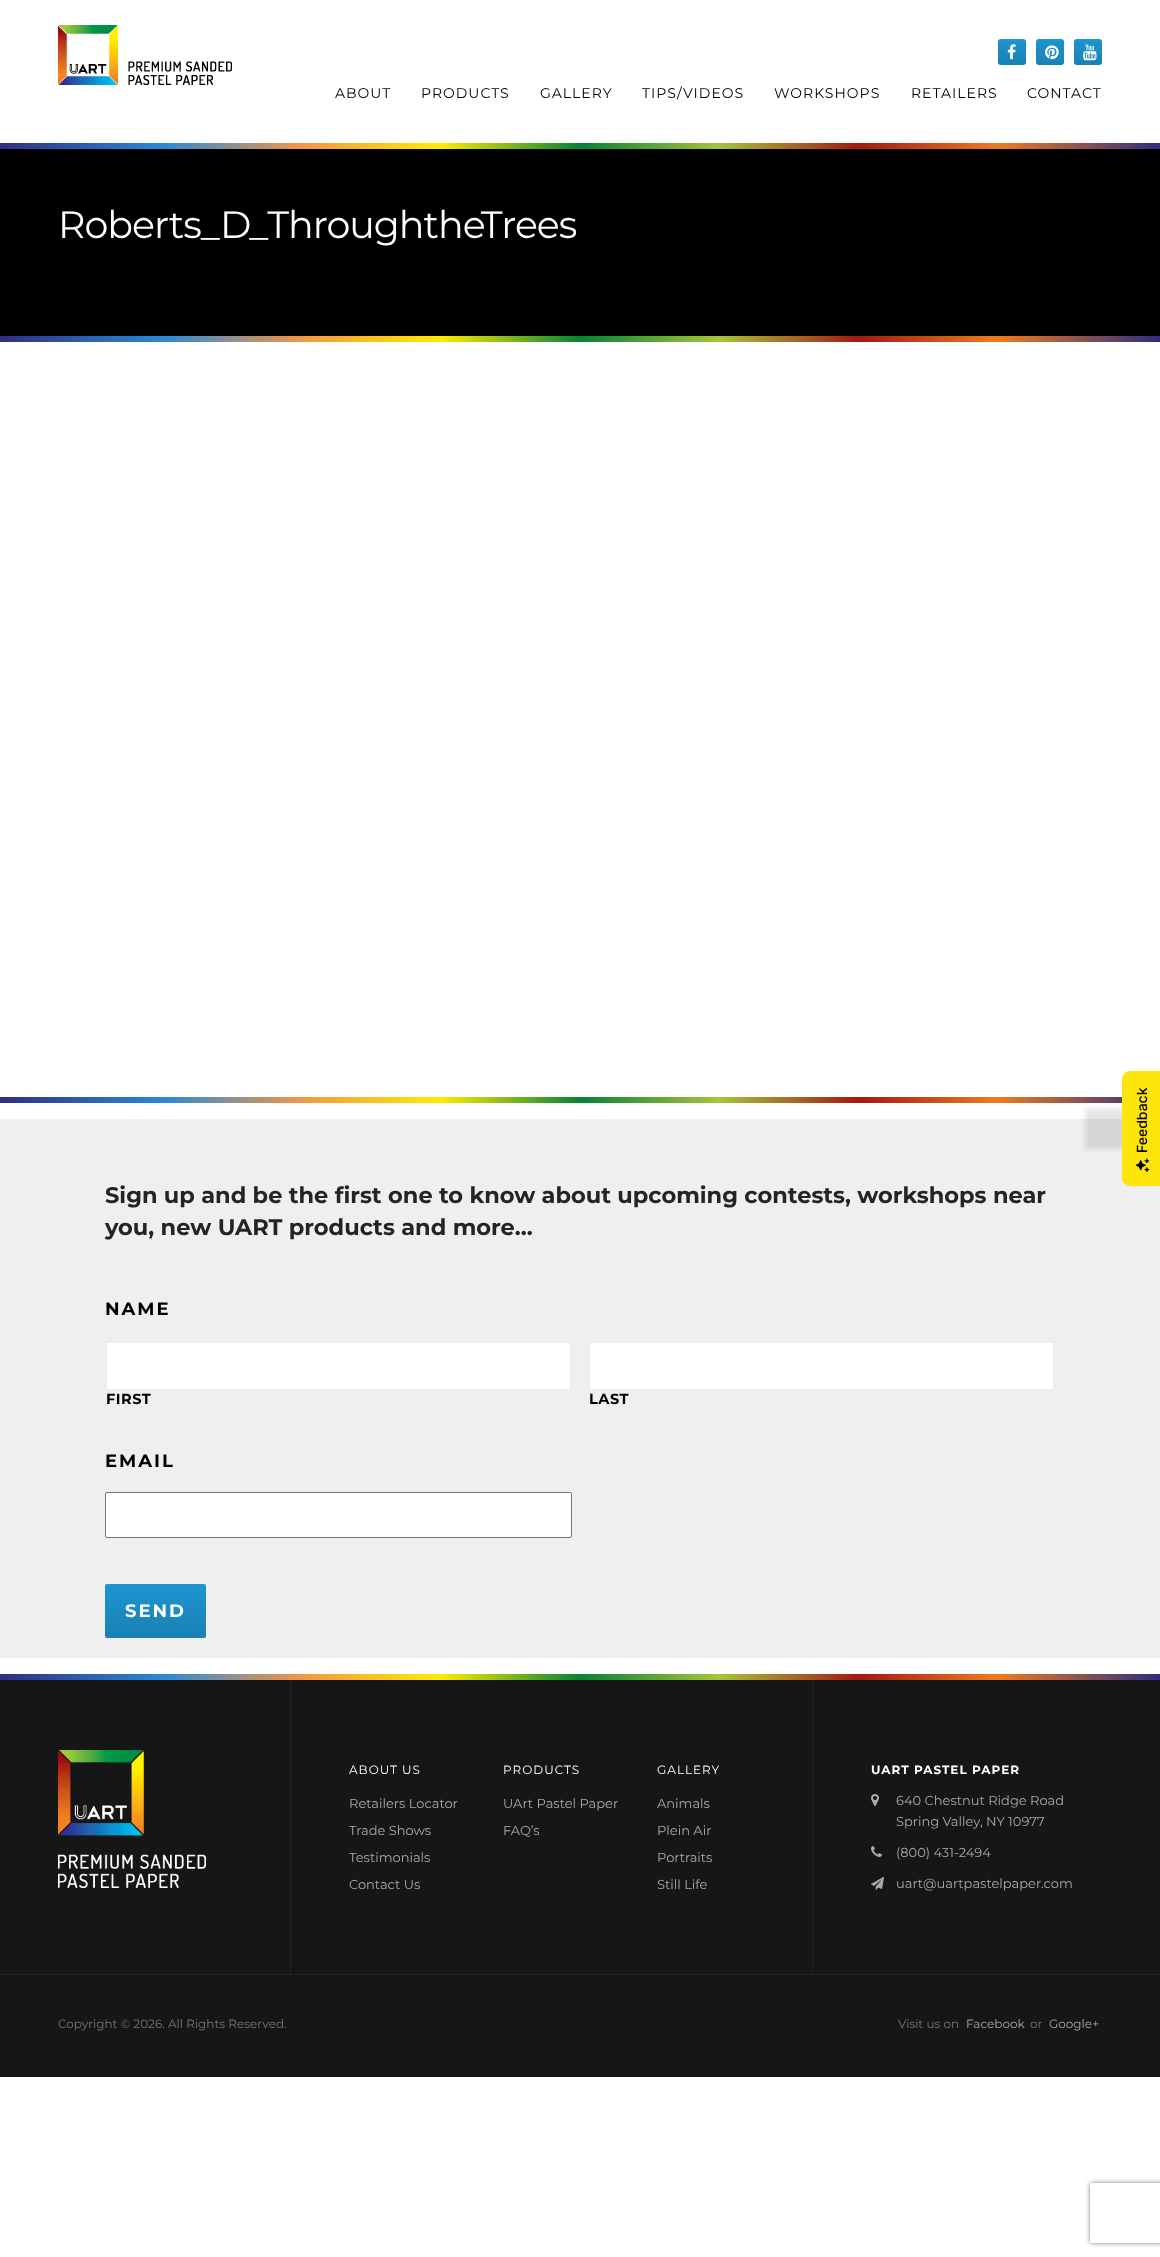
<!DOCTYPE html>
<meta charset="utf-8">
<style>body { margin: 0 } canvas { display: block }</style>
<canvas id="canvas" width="1160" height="2257"></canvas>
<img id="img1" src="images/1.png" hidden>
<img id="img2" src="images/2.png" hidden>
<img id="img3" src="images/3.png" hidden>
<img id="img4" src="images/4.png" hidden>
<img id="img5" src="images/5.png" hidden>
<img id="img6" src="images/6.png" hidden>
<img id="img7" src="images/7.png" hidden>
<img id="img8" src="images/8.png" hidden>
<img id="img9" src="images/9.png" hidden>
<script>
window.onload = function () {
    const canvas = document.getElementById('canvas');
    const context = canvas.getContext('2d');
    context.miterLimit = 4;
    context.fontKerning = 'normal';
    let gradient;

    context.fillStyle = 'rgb(255, 255, 255)';
    context.fillRect(0, 0, 1160, 2257);
    context.drawImage(document.getElementById('img1'), 58, 25, 174, 60);
    context.fillStyle = 'rgb(29, 150, 209)';
    context.beginPath();
    context.roundRect(998, 39, 28, 26, 3);
    context.fill();
    gradient = context.createLinearGradient(1012, 39, 1012, 65);
    gradient.addColorStop(0, 'rgba(0, 0, 0, 0)');
    gradient.addColorStop(1, 'rgba(0, 0, 0, 0.15)');
    context.fillStyle = gradient;
    context.beginPath();
    context.roundRect(998, 39, 28, 26, 3);
    context.fill();
    context.drawImage(document.getElementById('img2'), 1007, 44, 9, 16);
    context.fillStyle = 'rgb(29, 150, 209)';
    context.beginPath();
    context.roundRect(1036, 39, 28, 26, 3);
    context.fill();
    gradient = context.createLinearGradient(1050, 39, 1050, 65);
    gradient.addColorStop(0, 'rgba(0, 0, 0, 0)');
    gradient.addColorStop(1, 'rgba(0, 0, 0, 0.15)');
    context.fillStyle = gradient;
    context.beginPath();
    context.roundRect(1036, 39, 28, 26, 3);
    context.fill();
    context.drawImage(document.getElementById('img3'), 1045, 45, 14, 15);
    context.fillStyle = 'rgb(29, 150, 209)';
    context.beginPath();
    context.roundRect(1074, 39, 28, 26, 3);
    context.fill();
    gradient = context.createLinearGradient(1088, 39, 1088, 65);
    gradient.addColorStop(0, 'rgba(0, 0, 0, 0)');
    gradient.addColorStop(1, 'rgba(0, 0, 0, 0.15)');
    context.fillStyle = gradient;
    context.beginPath();
    context.roundRect(1074, 39, 28, 26, 3);
    context.fill();
    context.drawImage(document.getElementById('img4'), 1083, 44, 14, 17);
    gradient = context.createLinearGradient(0, 146, 1160, 146);
    gradient.addColorStop(0, 'rgb(49, 46, 131)');
    gradient.addColorStop(0.14, 'rgb(41, 137, 216)');
    gradient.addColorStop(0.26, 'rgb(243, 150, 71)');
    gradient.addColorStop(0.38, 'rgb(255, 235, 1)');
    gradient.addColorStop(0.5, 'rgb(4, 130, 55)');
    gradient.addColorStop(0.62, 'rgb(169, 195, 57)');
    gradient.addColorStop(0.74, 'rgb(162, 25, 18)');
    gradient.addColorStop(0.86, 'rgb(237, 124, 31)');
    gradient.addColorStop(1, 'rgb(49, 43, 129)');
    context.fillStyle = gradient;
    context.fillRect(0, 143, 1160, 6);
    context.fillStyle = 'rgb(0, 0, 0)';
    context.fillRect(0, 149, 1160, 187);
    gradient = context.createLinearGradient(0, 339, 1160, 339);
    gradient.addColorStop(0, 'rgb(49, 46, 131)');
    gradient.addColorStop(0.14, 'rgb(41, 137, 216)');
    gradient.addColorStop(0.26, 'rgb(243, 150, 71)');
    gradient.addColorStop(0.38, 'rgb(255, 235, 1)');
    gradient.addColorStop(0.5, 'rgb(4, 130, 55)');
    gradient.addColorStop(0.62, 'rgb(169, 195, 57)');
    gradient.addColorStop(0.74, 'rgb(162, 25, 18)');
    gradient.addColorStop(0.86, 'rgb(237, 124, 31)');
    gradient.addColorStop(1, 'rgb(49, 43, 129)');
    context.fillStyle = gradient;
    context.fillRect(0, 336, 1160, 6);
    gradient = context.createLinearGradient(0, 1100, 1160, 1100);
    gradient.addColorStop(0, 'rgb(49, 46, 131)');
    gradient.addColorStop(0.14, 'rgb(41, 137, 216)');
    gradient.addColorStop(0.26, 'rgb(243, 150, 71)');
    gradient.addColorStop(0.38, 'rgb(255, 235, 1)');
    gradient.addColorStop(0.5, 'rgb(4, 130, 55)');
    gradient.addColorStop(0.62, 'rgb(169, 195, 57)');
    gradient.addColorStop(0.74, 'rgb(162, 25, 18)');
    gradient.addColorStop(0.86, 'rgb(237, 124, 31)');
    gradient.addColorStop(1, 'rgb(49, 43, 129)');
    context.fillStyle = gradient;
    context.fillRect(0, 1097, 1122, 6);
    context.fillStyle = 'rgb(239, 239, 239)';
    context.fillRect(0, 1119, 1160, 539);
    context.fillStyle = 'rgba(0, 0, 0, 0.1)';
    context.filter = 'blur(2.5px)';
    context.beginPath();
    context.rect(1085, 1109, 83, 40);
    context.fill();
    context.filter = 'none';
    context.fillStyle = 'rgb(254, 230, 13)';
    context.beginPath();
    context.moveTo(1122, 1178);
    context.lineTo(1122, 1079);
    context.bezierCurveTo(1122, 1075, 1126, 1071, 1130, 1071);
    context.lineTo(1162, 1071);
    context.lineTo(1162, 1186);
    context.lineTo(1130, 1186);
    context.bezierCurveTo(1126, 1186, 1122, 1182, 1122, 1178);
    context.closePath();
    context.fill();
    context.drawImage(document.getElementById('img5'), 1136, 1158, 14, 14);
    context.fillStyle = 'rgb(255, 255, 255)';
    context.beginPath();
    context.roundRect(106, 1342, 465, 48, 1);
    context.fill();
    context.strokeStyle = 'rgb(238, 238, 238)';
    context.lineWidth = 2;
    context.stroke();
    context.beginPath();
    context.roundRect(589, 1342, 465, 48, 1);
    context.fill();
    context.stroke();
    context.beginPath();
    context.roundRect(105.5, 1492.5, 466, 45, 1.5);
    context.fill();
    context.strokeStyle = 'rgb(118, 118, 118)';
    context.lineWidth = 1;
    context.stroke();
    context.save();
    context.beginPath();
    context.moveTo(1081, 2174);
    context.lineTo(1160, 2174);
    context.lineTo(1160, 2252);
    context.lineTo(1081, 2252);
    context.closePath();
    context.moveTo(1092, 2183);
    context.lineTo(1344, 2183);
    context.bezierCurveTo(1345, 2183, 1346, 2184, 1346, 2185);
    context.lineTo(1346, 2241);
    context.bezierCurveTo(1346, 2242, 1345, 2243, 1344, 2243);
    context.lineTo(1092, 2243);
    context.bezierCurveTo(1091, 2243, 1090, 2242, 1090, 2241);
    context.lineTo(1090, 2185);
    context.bezierCurveTo(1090, 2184, 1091, 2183, 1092, 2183);
    context.closePath();
    context.clip('evenodd');
    context.fillStyle = 'rgb(128, 128, 128)';
    context.filter = 'blur(2.5px)';
    context.beginPath();
    context.roundRect(1090, 2183, 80, 60, 2);
    context.fill();
    context.filter = 'none';
    context.restore();
    context.fillStyle = 'rgb(29, 150, 209)';
    context.beginPath();
    context.roundRect(105, 1584, 101, 54, 2);
    context.fill();
    gradient = context.createLinearGradient(156, 1584, 156, 1638);
    gradient.addColorStop(0, 'rgba(0, 0, 0, 0)');
    gradient.addColorStop(1, 'rgba(0, 0, 0, 0.15)');
    context.fillStyle = gradient;
    context.beginPath();
    context.roundRect(105, 1584, 101, 54, 2);
    context.fill();
    gradient = context.createLinearGradient(0, 1677, 1160, 1677);
    gradient.addColorStop(0, 'rgb(49, 46, 131)');
    gradient.addColorStop(0.14, 'rgb(41, 137, 216)');
    gradient.addColorStop(0.26, 'rgb(243, 150, 71)');
    gradient.addColorStop(0.38, 'rgb(255, 235, 1)');
    gradient.addColorStop(0.5, 'rgb(4, 130, 55)');
    gradient.addColorStop(0.62, 'rgb(169, 195, 57)');
    gradient.addColorStop(0.74, 'rgb(162, 25, 18)');
    gradient.addColorStop(0.86, 'rgb(237, 124, 31)');
    gradient.addColorStop(1, 'rgb(49, 43, 129)');
    context.fillStyle = gradient;
    context.fillRect(0, 1674, 1160, 6);
    context.fillStyle = 'rgb(22, 22, 22)';
    context.fillRect(0, 1680, 1160, 294);
    context.fillStyle = 'rgb(34, 34, 34)';
    context.fillRect(0, 1974, 1160, 1);
    context.drawImage(document.getElementById('img6'), 58, 1750, 148, 138);
    context.fillRect(290, 1680, 1, 294);
    context.fillRect(812, 1680, 1, 294);
    context.drawImage(document.getElementById('img7'), 871, 1794, 8, 12);
    context.drawImage(document.getElementById('img8'), 871, 1846, 11, 11);
    context.drawImage(document.getElementById('img9'), 871, 1876, 13, 14);
    context.fillStyle = 'rgb(22, 22, 22)';
    context.fillRect(0, 1975, 1160, 102);
    context.letterSpacing = '1px';
    context.font = '14px Montserrat';
    context.fillStyle = 'rgb(0, 0, 0)';
    context.fillText('ABOUT', 335, 98);
    context.fillText('PRODUCTS', 421, 98);
    context.fillText('GALLERY', 540, 98);
    context.fillText('TIPS/VIDEOS', 642, 98);
    context.fillText('WORKSHOPS', 774, 98);
    context.fillText('RETAILERS', 911, 98);
    context.fillText('CONTACT', 1027, 98);
    context.letterSpacing = '-1px';
    context.font = '38px Montserrat';
    context.fillStyle = 'rgb(255, 255, 255)';
    context.fillText('Roberts_D_ThroughtheTrees', 58, 238);
    context.letterSpacing = '0px';
    context.font = '500 14px Inter';
    context.fillStyle = 'rgb(0, 0, 0)';
    context.save();
    context.translate(1147, 1153);
    context.rotate(-90 * Math.PI / 180);
    context.fillText('Feedback', 0, 0);
    context.restore();
    context.font = 'bold 22.5px Montserrat';
    context.fillStyle = 'rgb(36, 36, 36)';
    context.fillText('Sign up and be the first one to know about upcoming contests, workshops near', 105, 1203);
    context.fillText('you, new UART products and more…', 105, 1235);
    context.letterSpacing = '2px';
    context.font = 'bold 18px Montserrat';
    context.fillStyle = 'rgb(0, 0, 0)';
    context.fillText('NAME', 105, 1315);
    context.letterSpacing = '0.5px';
    context.font = 'bold 14.5px Montserrat';
    context.fillText('FIRST', 106, 1404);
    context.fillText('LAST', 589, 1404);
    context.letterSpacing = '2px';
    context.font = 'bold 18px Montserrat';
    context.fillText('EMAIL', 105, 1467);
    context.fillStyle = 'rgb(255, 255, 255)';
    context.fillText('SEND', 125, 1617);
    context.letterSpacing = '1px';
    context.font = '12px Montserrat';
    context.fillText('ABOUT US', 349, 1774);
    context.letterSpacing = '0px';
    context.font = '13px Montserrat';
    context.fillStyle = 'rgb(170, 170, 170)';
    context.fillText('Retailers Locator', 349, 1808);
    context.fillText('Trade Shows', 349, 1835);
    context.fillText('Testimonials', 349, 1862);
    context.fillText('Contact Us', 349, 1889);
    context.letterSpacing = '1px';
    context.font = '12px Montserrat';
    context.fillStyle = 'rgb(255, 255, 255)';
    context.fillText('PRODUCTS', 503, 1774);
    context.letterSpacing = '0px';
    context.font = '13px Montserrat';
    context.fillStyle = 'rgb(170, 170, 170)';
    context.fillText('UArt Pastel Paper', 503, 1808);
    context.fillText('FAQ’s', 503, 1835);
    context.letterSpacing = '1px';
    context.font = '12px Montserrat';
    context.fillStyle = 'rgb(255, 255, 255)';
    context.fillText('GALLERY', 657, 1774);
    context.letterSpacing = '0px';
    context.font = '13px Montserrat';
    context.fillStyle = 'rgb(170, 170, 170)';
    context.fillText('Animals', 657, 1808);
    context.fillText('Plein Air', 657, 1835);
    context.fillText('Portraits', 657, 1862);
    context.fillText('Still Life', 657, 1889);
    context.letterSpacing = '1px';
    context.font = 'bold 12px Montserrat';
    context.fillStyle = 'rgb(255, 255, 255)';
    context.fillText('UART PASTEL PAPER', 871, 1774);
    context.letterSpacing = '0px';
    context.font = '13px Montserrat';
    context.fillStyle = 'rgb(170, 170, 170)';
    context.fillText('640 Chestnut Ridge Road', 896, 1805);
    context.fillText('Spring Valley, NY 10977', 896, 1826);
    context.fillText('(800) 431-2494', 896, 1857);
    context.fillText('uart@uartpastelpaper.com', 896, 1888);
    context.font = '12px Montserrat';
    context.fillStyle = 'rgb(119, 119, 119)';
    context.fillText('Copyright © 2026. All Rights Reserved.', 58, 2028);
    context.fillText('Visit us on', 898, 2028);
    context.fillStyle = 'rgb(170, 170, 170)';
    context.fillText('Facebook', 966, 2028);
    context.fillStyle = 'rgb(119, 119, 119)';
    context.fillText('or', 1030, 2028);
    context.fillStyle = 'rgb(170, 170, 170)';
    context.fillText('Google+', 1049, 2028);
};
</script>
